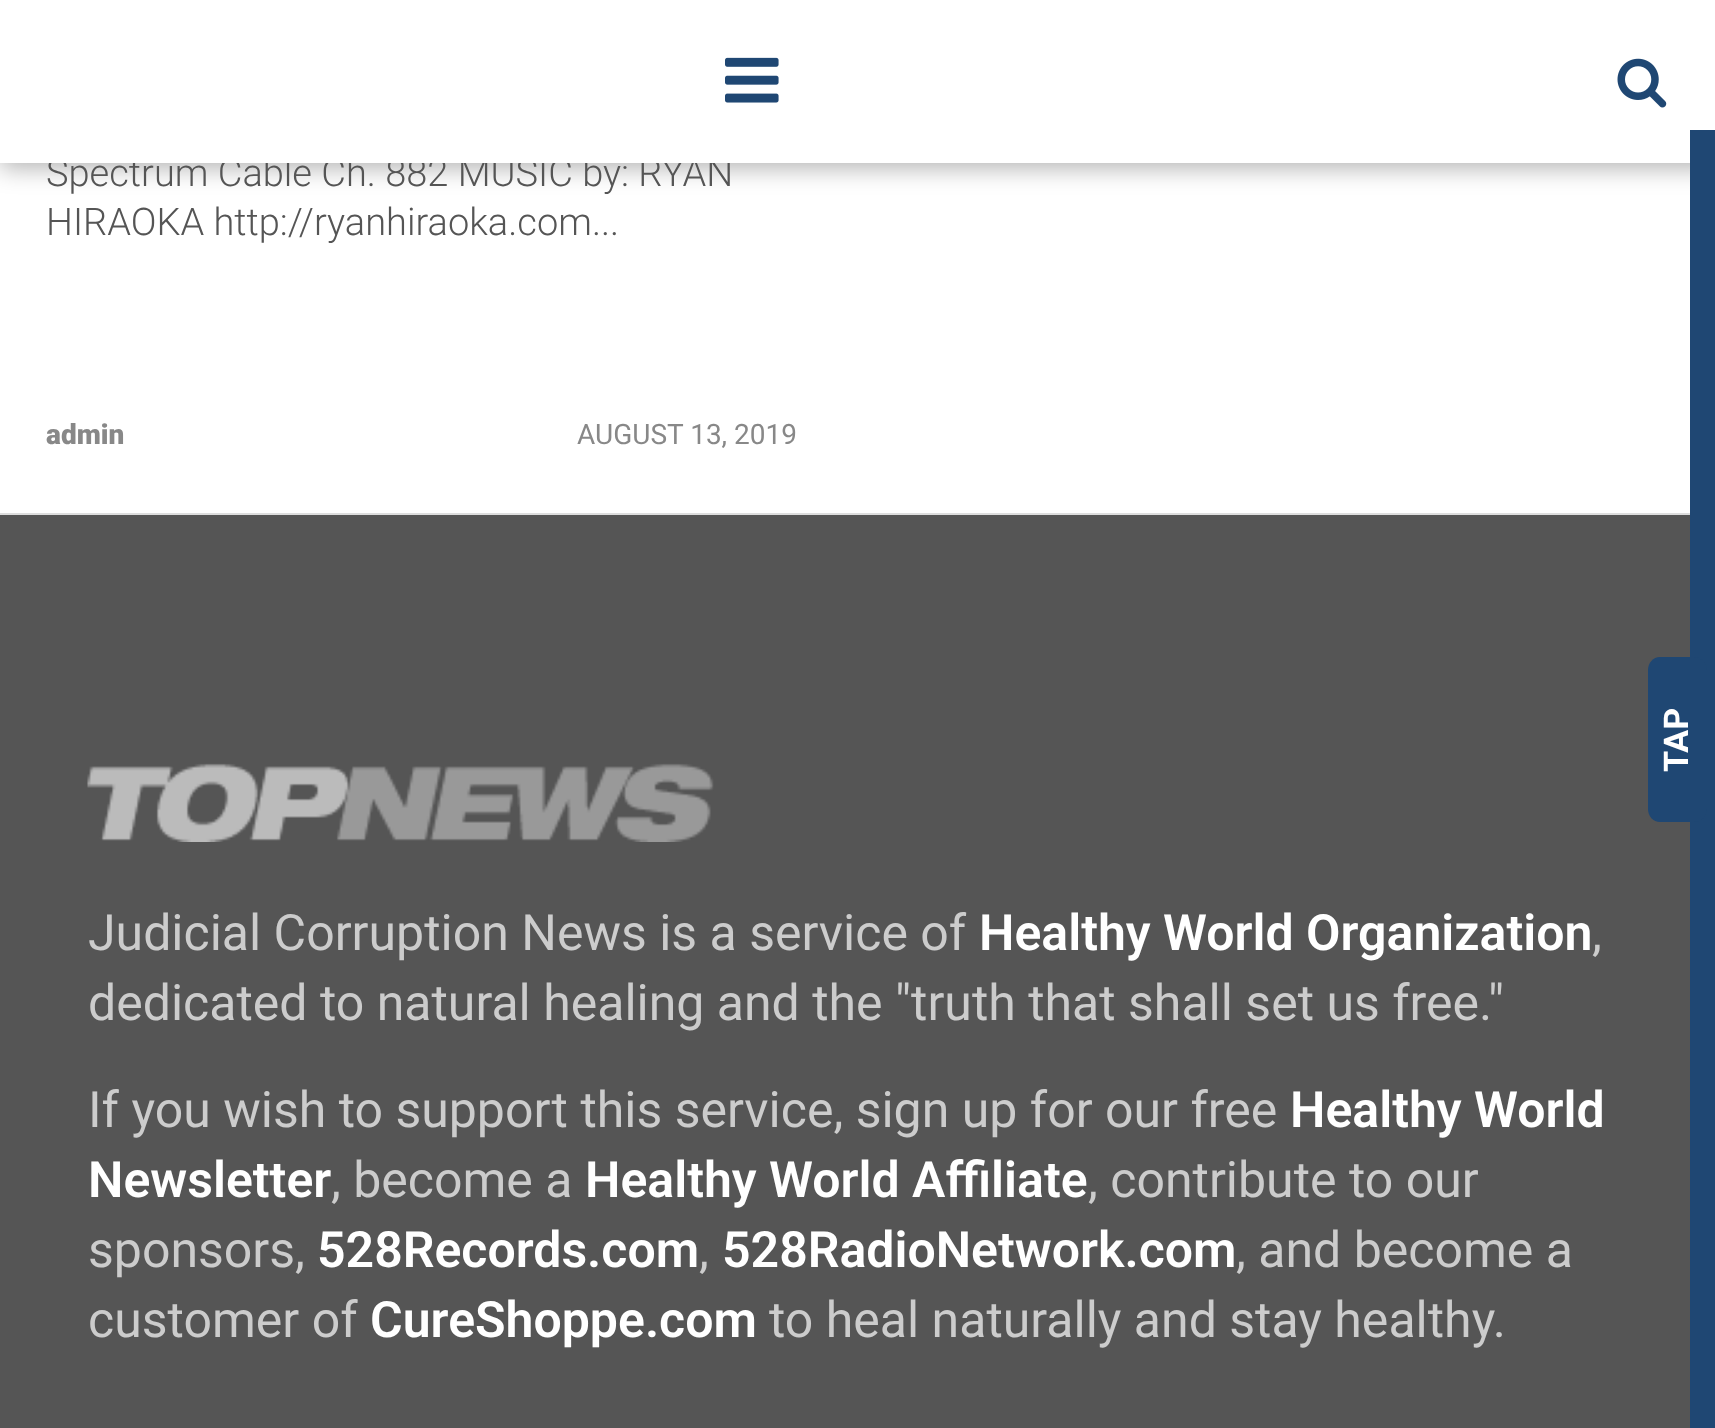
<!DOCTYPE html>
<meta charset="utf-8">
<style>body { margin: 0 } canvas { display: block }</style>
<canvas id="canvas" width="1715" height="1428"></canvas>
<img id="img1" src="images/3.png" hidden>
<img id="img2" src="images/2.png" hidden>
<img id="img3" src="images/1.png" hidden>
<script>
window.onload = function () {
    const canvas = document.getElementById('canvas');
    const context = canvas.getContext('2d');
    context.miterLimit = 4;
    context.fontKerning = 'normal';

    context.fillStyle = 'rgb(255, 255, 255)';
    context.fillRect(0, 0, 1715, 1428);
    context.fillStyle = 'rgba(0, 0, 0, 0.3)';
    context.filter = 'blur(12.5px)';
    context.beginPath();
    context.rect(0, 5, 1715, 163);
    context.fill();
    context.filter = 'none';
    context.fillStyle = 'rgb(221, 221, 221)';
    context.fillRect(0, 513, 1690, 2);
    context.fillStyle = 'rgb(85, 85, 85)';
    context.fillRect(0, 515, 1690, 913);
    context.drawImage(document.getElementById('img1'), 87, 763, 627, 79);
    context.font = '300 38px Roboto';
    context.fillText('Spectrum Cable Ch. 882 MUSIC by: RYAN', 46, 186);
    context.fillStyle = 'rgb(255, 255, 255)';
    context.fillRect(0, 0, 1715, 163);
    context.drawImage(document.getElementById('img2'), 1617, 58, 50, 50);
    context.drawImage(document.getElementById('img3'), 725, 57, 54, 46);
    context.fillStyle = 'rgb(85, 85, 85)';
    context.fillText('HIRAOKA http://ryanhiraoka.com...', 46, 235);
    context.font = '900 28px Roboto';
    context.fillStyle = 'rgb(136, 136, 136)';
    context.fillText('admin', 46, 444);
    context.font = '28px Roboto';
    context.fillText('AUGUST 13, 2019', 577, 444);
    context.fillStyle = 'rgb(31, 71, 115)';
    context.fillRect(1690, 130, 25, 1298);
    context.beginPath();
    context.moveTo(1648, 809);
    context.lineTo(1648, 670);
    context.bezierCurveTo(1648, 663, 1653, 657, 1660, 657);
    context.lineTo(1694, 657);
    context.bezierCurveTo(1701, 657, 1707, 663, 1707, 670);
    context.lineTo(1707, 809);
    context.bezierCurveTo(1707, 816, 1701, 822, 1694, 822);
    context.lineTo(1660, 822);
    context.bezierCurveTo(1653, 822, 1648, 816, 1648, 809);
    context.closePath();
    context.fill();
    context.font = 'bold 34px Roboto';
    context.fillStyle = 'rgb(255, 255, 255)';
    context.save();
    context.translate(1688, 772);
    context.rotate(-90 * Math.PI / 180);
    context.fillText('TAP', 0, 0);
    context.restore();
    context.font = '50px Roboto';
    context.fillStyle = 'rgb(204, 204, 204)';
    context.fillText('Judicial Corruption News is a service of', 88, 950);
    context.font = '600 50px Roboto';
    context.fillStyle = 'rgb(255, 255, 255)';
    context.fillText('Healthy World Organization', 979, 950);
    context.font = '50px Roboto';
    context.fillStyle = 'rgb(204, 204, 204)';
    context.fillText(',', 1592, 950);
    context.fillText('dedicated to natural healing and the "truth that shall set us free."', 88, 1020);
    context.fillText('If you wish to support this service, sign up for our free', 88, 1127);
    context.font = '600 50px Roboto';
    context.fillStyle = 'rgb(255, 255, 255)';
    context.fillText('Healthy World', 1290, 1127);
    context.fillText('Newsletter', 88, 1197);
    context.font = '50px Roboto';
    context.fillStyle = 'rgb(204, 204, 204)';
    context.fillText(', become a', 331, 1197);
    context.font = '600 50px Roboto';
    context.fillStyle = 'rgb(255, 255, 255)';
    context.fillText('Healthy World Affiliate', 585, 1197);
    context.font = '50px Roboto';
    context.fillStyle = 'rgb(204, 204, 204)';
    context.fillText(', contribute to our', 1088, 1197);
    context.fillText('sponsors,', 88, 1267);
    context.font = '600 50px Roboto';
    context.fillStyle = 'rgb(255, 255, 255)';
    context.fillText('528Records.com', 317, 1267);
    context.font = '50px Roboto';
    context.fillStyle = 'rgb(204, 204, 204)';
    context.fillText(',', 699, 1267);
    context.font = '600 50px Roboto';
    context.fillStyle = 'rgb(255, 255, 255)';
    context.fillText('528RadioNetwork.com', 722, 1267);
    context.font = '50px Roboto';
    context.fillStyle = 'rgb(204, 204, 204)';
    context.fillText(', and become a', 1236, 1267);
    context.fillText('customer of', 88, 1337);
    context.font = '600 50px Roboto';
    context.fillStyle = 'rgb(255, 255, 255)';
    context.fillText('CureShoppe.com', 370, 1337);
    context.font = '50px Roboto';
    context.fillStyle = 'rgb(204, 204, 204)';
    context.fillText('to heal naturally and stay healthy.', 769, 1337);
};
</script>
